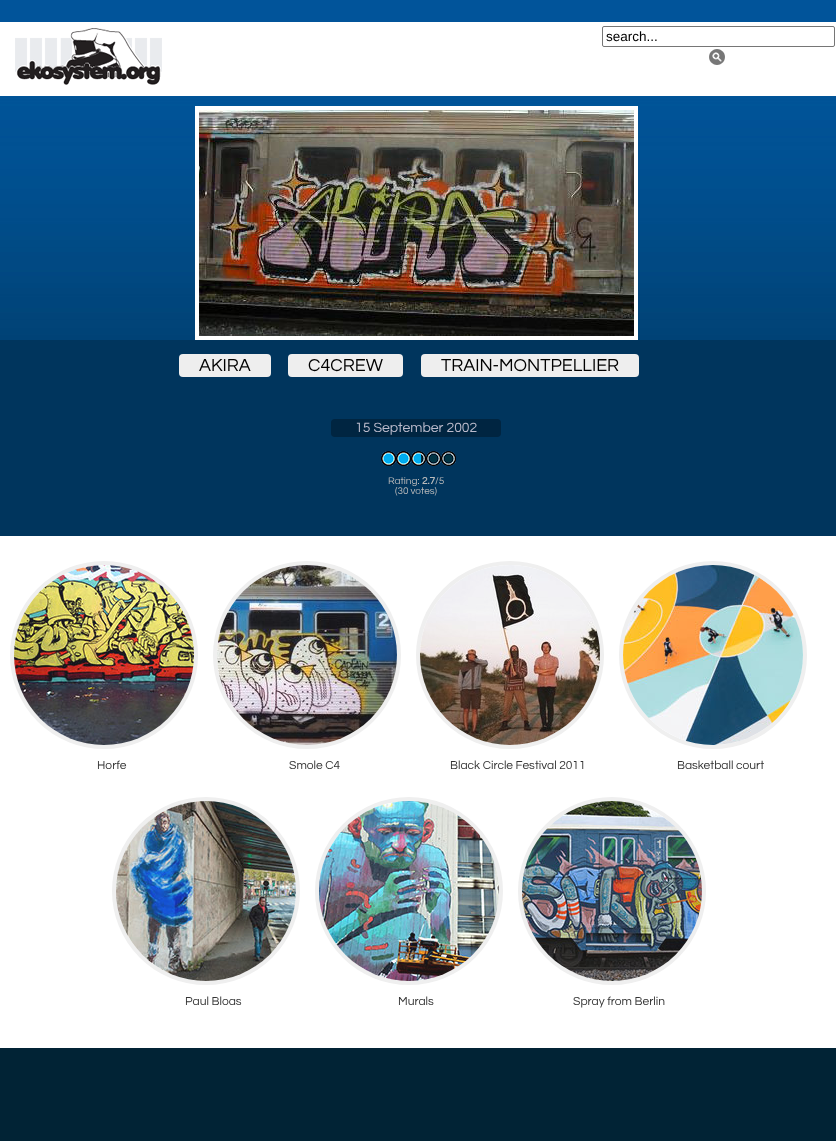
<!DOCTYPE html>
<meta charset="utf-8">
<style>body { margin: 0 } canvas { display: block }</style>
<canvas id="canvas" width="836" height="1141"></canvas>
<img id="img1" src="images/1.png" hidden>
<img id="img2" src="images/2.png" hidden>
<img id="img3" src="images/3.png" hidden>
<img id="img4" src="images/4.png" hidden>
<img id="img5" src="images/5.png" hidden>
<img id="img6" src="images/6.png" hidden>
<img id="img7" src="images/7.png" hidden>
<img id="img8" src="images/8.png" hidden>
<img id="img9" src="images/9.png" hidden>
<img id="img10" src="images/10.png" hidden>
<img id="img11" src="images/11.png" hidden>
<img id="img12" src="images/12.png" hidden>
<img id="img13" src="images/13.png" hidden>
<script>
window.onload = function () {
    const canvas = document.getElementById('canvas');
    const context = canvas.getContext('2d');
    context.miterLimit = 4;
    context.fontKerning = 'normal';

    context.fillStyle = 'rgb(1, 35, 53)';
    context.fillRect(0, 0, 836, 1141);
    context.drawImage(document.getElementById('img1'), 0, 0, 836, 340);
    context.fillStyle = 'rgb(255, 255, 255)';
    context.fillRect(0, 22, 836, 74);
    context.drawImage(document.getElementById('img2'), 15, 28, 147, 57);
    context.beginPath();
    context.roundRect(602.5, 26.5, 232, 20, 1.5);
    context.strokeStyle = 'rgb(118, 118, 118)';
    context.stroke();
    context.fillStyle = 'rgb(239, 239, 239)';
    context.fillRect(713, 53, 8, 8);
    context.drawImage(document.getElementById('img3'), 709, 47, 16, 18);
    context.strokeStyle = 'rgb(255, 255, 255)';
    context.lineWidth = 4;
    context.strokeRect(197, 108, 439, 230);
    context.drawImage(document.getElementById('img4'), 199, 110, 435, 226);
    context.fillStyle = 'rgb(0, 53, 93)';
    context.fillRect(0, 340, 836, 196);
    context.fillStyle = 'rgb(238, 238, 238)';
    context.beginPath();
    context.roundRect(179, 354, 92, 23, 4);
    context.fill();
    context.beginPath();
    context.roundRect(288, 354, 115, 23, 4);
    context.fill();
    context.beginPath();
    context.roundRect(421, 354, 218, 23, 4);
    context.fill();
    context.fillStyle = 'rgb(0, 37, 65)';
    context.beginPath();
    context.roundRect(331, 419, 170, 18, 4);
    context.fill();
    context.drawImage(document.getElementById('img5'), 381, 451, 75, 15);
    context.drawImage(document.getElementById('img6'), 382, 451, 39, 15);
    context.fillStyle = 'rgb(255, 255, 255)';
    context.fillRect(0, 536, 836, 512);
    context.beginPath();
    context.arc(104, 655, 92, 0, 2 * Math.PI);
    context.strokeStyle = 'rgb(239, 239, 239)';
    context.stroke();
    context.drawImage(document.getElementById('img7'), 14, 565, 180, 180);
    context.beginPath();
    context.arc(307, 655, 92, 0, 2 * Math.PI);
    context.stroke();
    context.drawImage(document.getElementById('img8'), 217, 565, 180, 180);
    context.beginPath();
    context.arc(510, 655, 92, 0, 2 * Math.PI);
    context.stroke();
    context.drawImage(document.getElementById('img9'), 420, 565, 180, 180);
    context.beginPath();
    context.arc(713, 655, 92, 0, 2 * Math.PI);
    context.stroke();
    context.drawImage(document.getElementById('img10'), 623, 565, 180, 180);
    context.beginPath();
    context.arc(206, 891, 92, 0, 2 * Math.PI);
    context.stroke();
    context.drawImage(document.getElementById('img11'), 116, 801, 180, 180);
    context.beginPath();
    context.arc(409, 891, 92, 0, 2 * Math.PI);
    context.stroke();
    context.drawImage(document.getElementById('img12'), 319, 801, 180, 180);
    context.beginPath();
    context.arc(612, 891, 92, 0, 2 * Math.PI);
    context.stroke();
    context.drawImage(document.getElementById('img13'), 522, 801, 180, 180);
    context.font = '13.5px Liberation Sans';
    context.fillStyle = 'rgb(0, 0, 0)';
    context.fillText('search...', 606, 41);
    context.font = '18px Questrial';
    context.fillText('AKIRA', 199, 371);
    context.fillText('C4CREW', 308, 371);
    context.fillText('TRAIN-MONTPELLIER', 441, 371);
    context.font = '14px Questrial';
    context.fillStyle = 'rgb(187, 187, 204)';
    context.fillText('15 September 2002', 355, 432);
    context.font = '10px Questrial';
    context.fillStyle = 'rgb(187, 187, 187)';
    context.fillText('Rating:', 388, 484);
    context.font = 'bold 10px Questrial';
    context.fillText('2.7', 422, 484);
    context.font = '10px Questrial';
    context.fillText('/5', 435, 484);
    context.fillText('(30 votes)', 395, 494);
    context.font = '12px Questrial';
    context.fillStyle = 'rgb(51, 51, 51)';
    context.fillText('Horfe', 97, 769);
    context.fillText('Smole C4', 289, 769);
    context.fillText('Black Circle Festival 2011', 450, 769);
    context.fillText('Basketball court', 677, 769);
    context.fillText('Paul Bloas', 185, 1005);
    context.fillText('Murals', 398, 1005);
    context.fillText('Spray from Berlin', 573, 1005);
};
</script>
